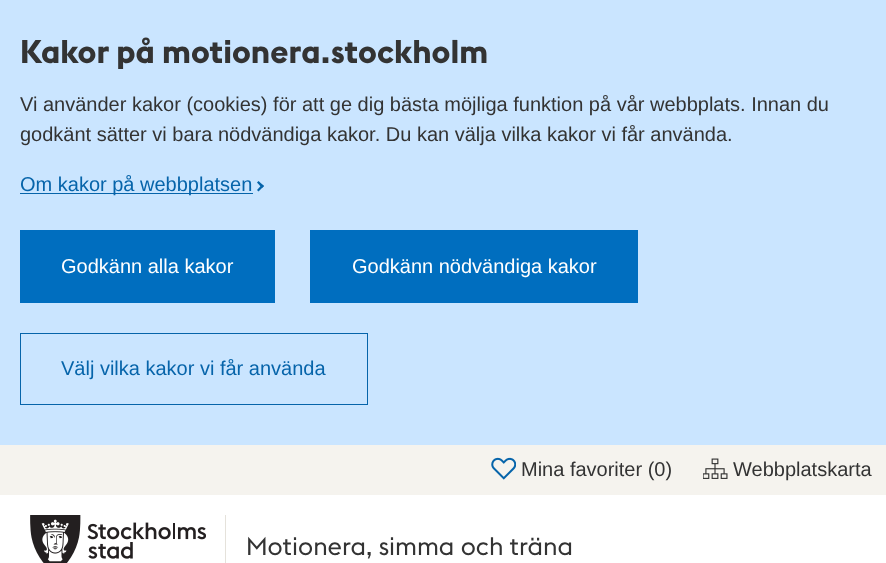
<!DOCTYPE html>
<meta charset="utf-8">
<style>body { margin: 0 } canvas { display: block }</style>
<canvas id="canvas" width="886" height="563"></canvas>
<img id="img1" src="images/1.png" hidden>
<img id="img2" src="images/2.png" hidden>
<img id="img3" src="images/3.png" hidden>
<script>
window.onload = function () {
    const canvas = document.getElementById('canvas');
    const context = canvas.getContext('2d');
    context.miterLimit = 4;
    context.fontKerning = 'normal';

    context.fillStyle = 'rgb(245, 243, 238)';
    context.fillRect(0, 0, 886, 563);
    context.fillStyle = 'rgb(202, 229, 255)';
    context.fillRect(0, 0, 886, 445);
    context.fillStyle = 'rgb(6, 100, 170)';
    context.fillRect(20, 193, 233, 1);
    context.beginPath();
    context.moveTo(257, 182.5);
    context.lineTo(258.5, 181);
    context.lineTo(264, 186);
    context.lineTo(262, 188);
    context.closePath();
    context.fill();
    context.beginPath();
    context.moveTo(257, 190);
    context.lineTo(262, 184.5);
    context.lineTo(264, 186);
    context.lineTo(258.5, 191.5);
    context.closePath();
    context.fill();
    context.fillStyle = 'rgb(0, 110, 191)';
    context.fillRect(20, 230, 255, 73);
    context.fillRect(310, 230, 328, 73);
    context.strokeStyle = 'rgb(6, 100, 170)';
    context.strokeRect(20.5, 333.5, 347, 71);
    context.drawImage(document.getElementById('img1'), 491, 457, 25, 23);
    context.drawImage(document.getElementById('img2'), 703, 458, 25, 21);
    context.fillStyle = 'rgb(255, 255, 255)';
    context.fillRect(0, 495, 886, 68);
    context.fillStyle = 'rgb(229, 226, 219)';
    context.fillRect(225, 515, 1, 48);
    context.drawImage(document.getElementById('img3'), 30, 515, 176, 48);
    context.font = 'bold 32.5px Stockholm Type';
    context.fillStyle = 'rgb(51, 51, 51)';
    context.fillText('Kakor på motionera.stockholm', 20, 63);
    context.font = '20px Liberation Sans';
    context.fillText('Vi använder kakor (cookies) för att ge dig bästa möjliga funktion på vår webbplats. Innan du', 20, 111);
    context.fillText('godkänt sätter vi bara nödvändiga kakor. Du kan välja vilka kakor vi får använda.', 20, 141);
    context.fillStyle = 'rgb(6, 100, 170)';
    context.fillText('Om kakor på webbplatsen', 20, 191);
    context.fillStyle = 'rgb(255, 255, 255)';
    context.fillText('Godkänn alla kakor', 61, 273);
    context.fillText('Godkänn nödvändiga kakor', 352, 273);
    context.fillStyle = 'rgb(6, 100, 170)';
    context.fillText('Välj vilka kakor vi får använda', 61, 375);
    context.fillStyle = 'rgb(51, 51, 51)';
    context.fillText('Mina favoriter (0)', 521, 476);
    context.fillText('Webbplatskarta', 733, 476);
    context.font = '25px Stockholm Type';
    context.fillText('Motionera, simma och träna', 246, 555);
};
</script>
